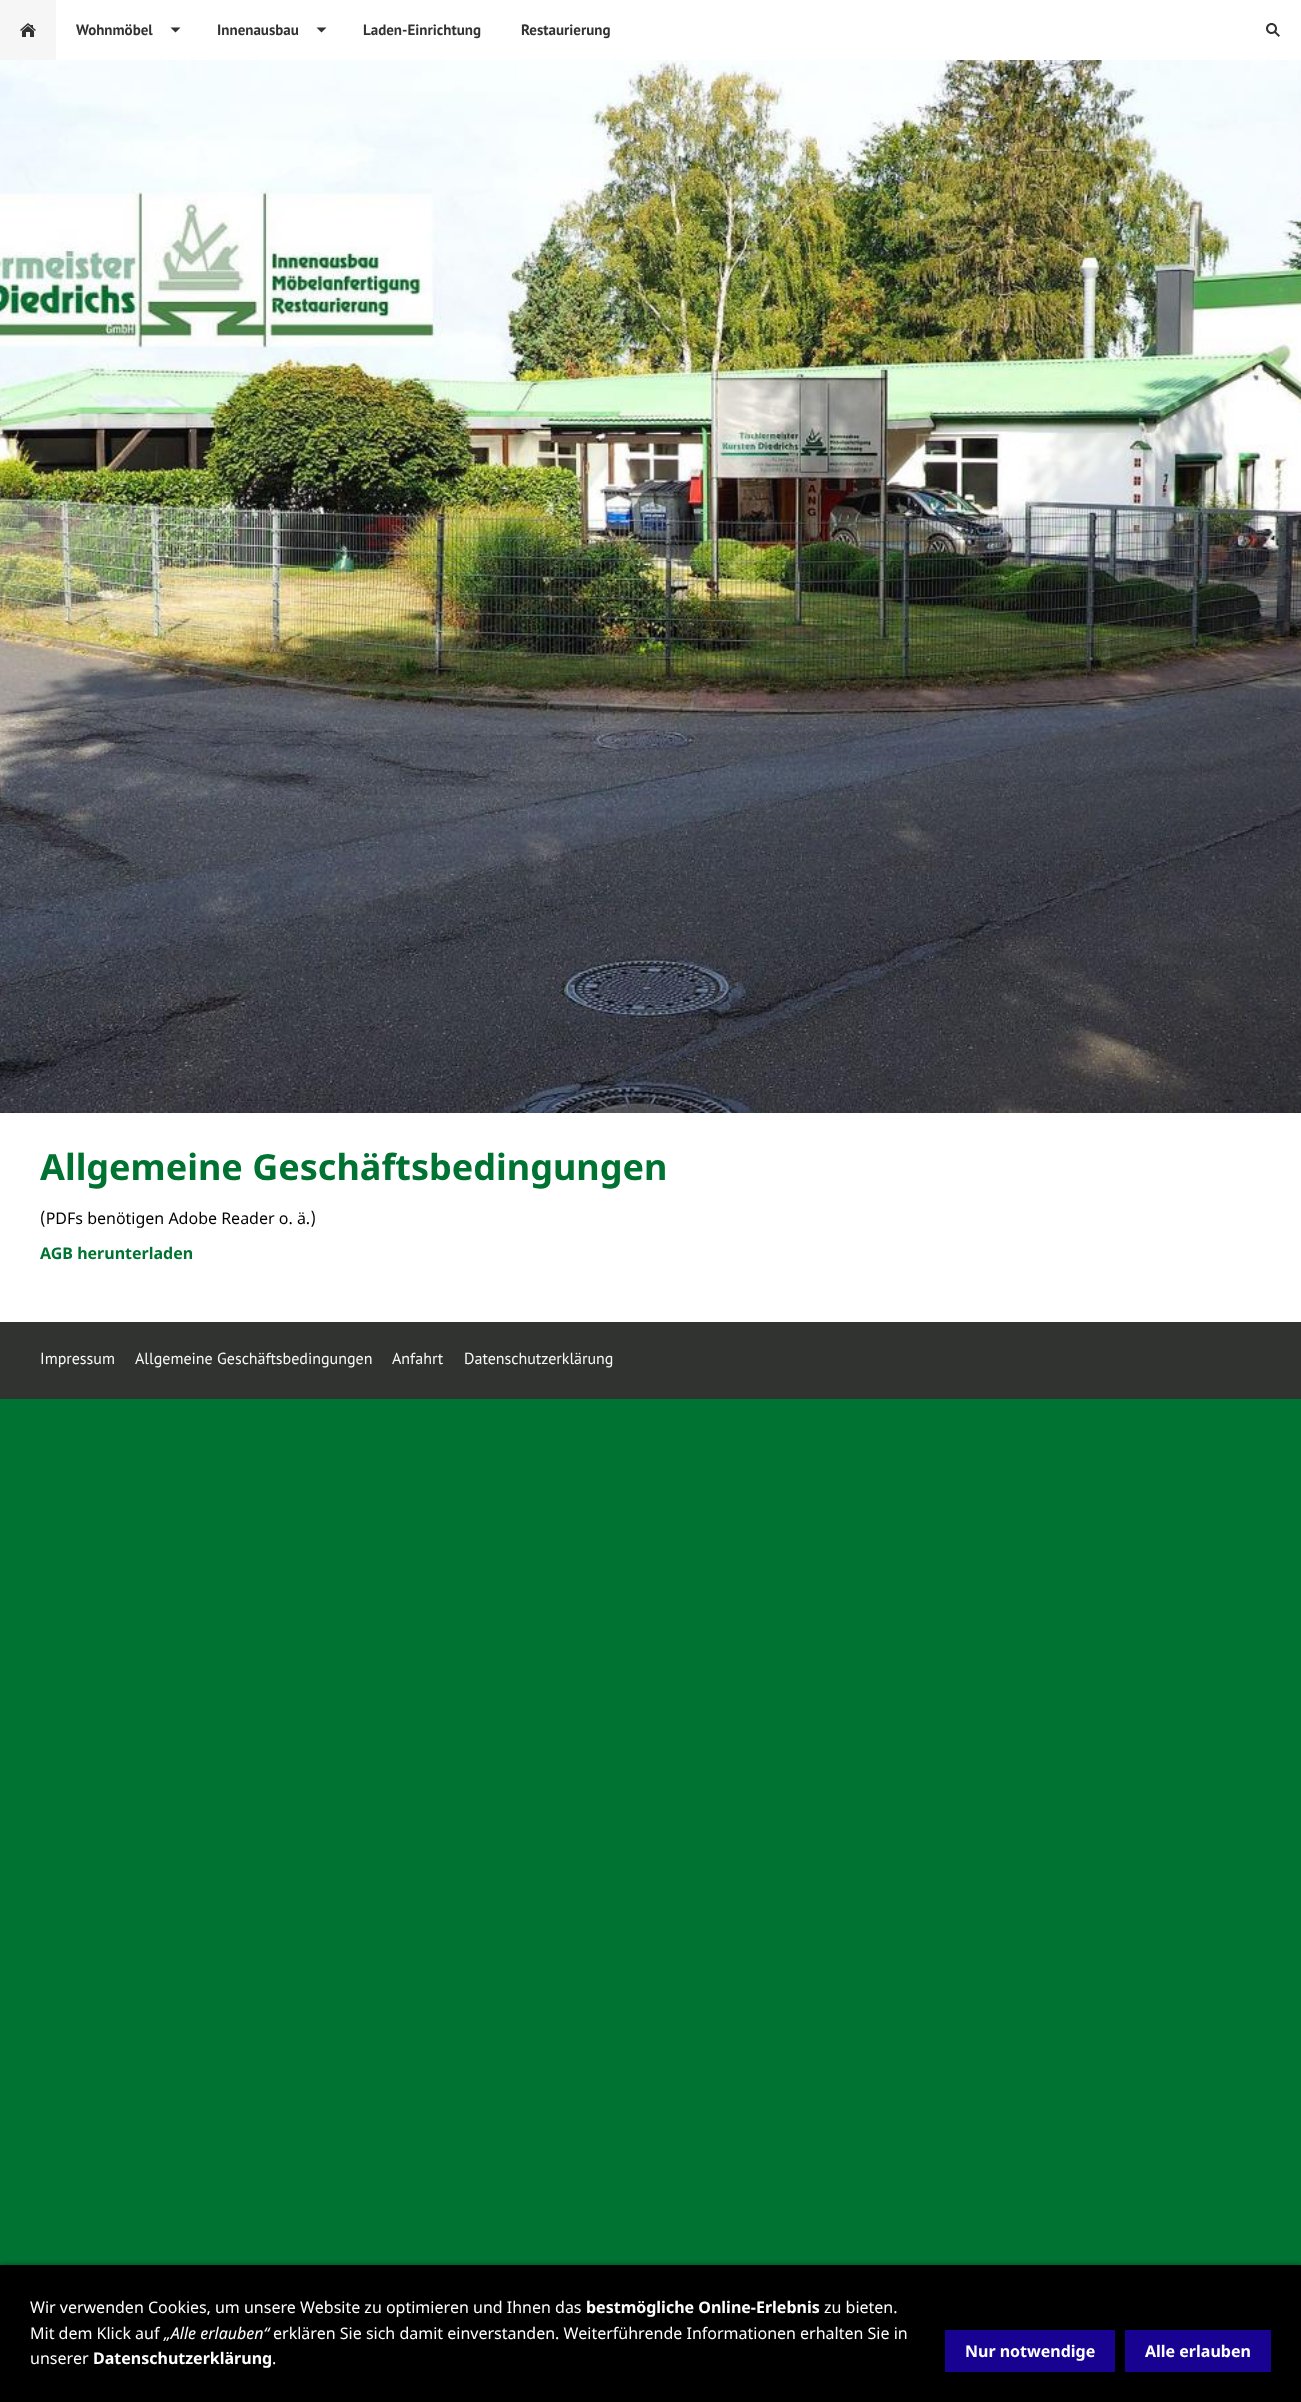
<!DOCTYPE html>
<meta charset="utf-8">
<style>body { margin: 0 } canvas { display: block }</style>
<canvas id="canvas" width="1301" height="2402"></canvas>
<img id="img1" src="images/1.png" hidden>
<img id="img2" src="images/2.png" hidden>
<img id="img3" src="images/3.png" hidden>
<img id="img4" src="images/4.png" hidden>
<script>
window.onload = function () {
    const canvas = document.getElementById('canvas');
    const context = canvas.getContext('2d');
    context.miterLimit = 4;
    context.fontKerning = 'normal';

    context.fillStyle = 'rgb(0, 115, 50)';
    context.fillRect(0, 0, 1301, 2402);
    context.fillStyle = 'rgb(255, 255, 255)';
    context.fillRect(56, 0, 1245, 60);
    context.fillStyle = 'rgb(246, 246, 246)';
    context.fillRect(0, 0, 56, 60);
    context.drawImage(document.getElementById('img1'), 20, 23, 16, 14);
    context.drawImage(document.getElementById('img2'), 170, 27, 11, 6);
    context.drawImage(document.getElementById('img2'), 316, 27, 11, 6);
    context.drawImage(document.getElementById('img3'), 1266, 23, 14, 14);
    context.drawImage(document.getElementById('img4'), 0, 60, 1301, 1053);
    context.fillStyle = 'rgb(255, 255, 255)';
    context.fillRect(0, 1113, 1301, 209);
    context.fillStyle = 'rgb(49, 51, 48)';
    context.fillRect(0, 1322, 1301, 77);
    context.fillStyle = 'rgba(0, 0, 0, 0.4)';
    context.filter = 'blur(2.5px)';
    context.beginPath();
    context.rect(0, 2265, 1301, 137);
    context.fill();
    context.filter = 'none';
    context.fillStyle = 'rgb(0, 0, 0)';
    context.fillRect(0, 2265, 1301, 137);
    context.fillStyle = 'rgb(23, 2, 146)';
    context.fillRect(945, 2330, 170, 42);
    context.fillRect(1125, 2330, 146, 42);
    context.font = 'bold 15px PT Sans';
    context.fillStyle = 'rgb(49, 51, 48)';
    context.fillText('Wohnmöbel', 76, 35);
    context.fillText('Innenausbau', 217, 35);
    context.fillText('Laden-Einrichtung', 363, 35);
    context.fillText('Restaurierung', 521, 35);
    context.font = 'bold 36px Noto Sans';
    context.fillStyle = 'rgb(0, 115, 50)';
    context.fillText('Allgemeine Geschäftsbedingungen', 40, 1180);
    context.font = '16px Noto Sans';
    context.fillStyle = 'rgb(0, 0, 0)';
    context.fillText('(PDFs benötigen Adobe Reader o. ä.)', 40, 1224);
    context.font = 'bold 16px Noto Sans';
    context.fillStyle = 'rgb(0, 115, 50)';
    context.fillText('AGB herunterladen', 40, 1259);
    context.font = '16px PT Sans';
    context.fillStyle = 'rgb(247, 250, 244)';
    context.fillText('Impressum', 40, 1364);
    context.fillText('Allgemeine Geschäftsbedingungen', 135, 1364);
    context.fillText('Anfahrt', 392, 1364);
    context.fillText('Datenschutzerklärung', 464, 1364);
    context.font = '16px Noto Sans';
    context.fillStyle = 'rgb(255, 255, 255)';
    context.fillText('Wir verwenden Cookies, um unsere Website zu optimieren und Ihnen das', 30, 2313);
    context.font = 'bold 16px Noto Sans';
    context.fillText('bestmögliche Online-Erlebnis', 586, 2313);
    context.font = '16px Noto Sans';
    context.fillText('zu bieten.', 824, 2313);
    context.fillText('Mit dem Klick auf', 30, 2339);
    context.font = 'italic 16px Noto Sans';
    context.fillText('„Alle erlauben“', 164, 2339);
    context.font = '16px Noto Sans';
    context.fillText('erklären Sie sich damit einverstanden. Weiterführende Informationen erhalten Sie in', 273, 2339);
    context.fillText('unserer', 30, 2364);
    context.font = 'bold 16px Noto Sans';
    context.fillText('Datenschutzerklärung', 93, 2364);
    context.font = '16px Noto Sans';
    context.fillText('.', 272, 2364);
    context.font = 'bold 16px Noto Sans';
    context.fillText('Nur notwendige', 965, 2357);
    context.fillText('Alle erlauben', 1145, 2357);
};
</script>
